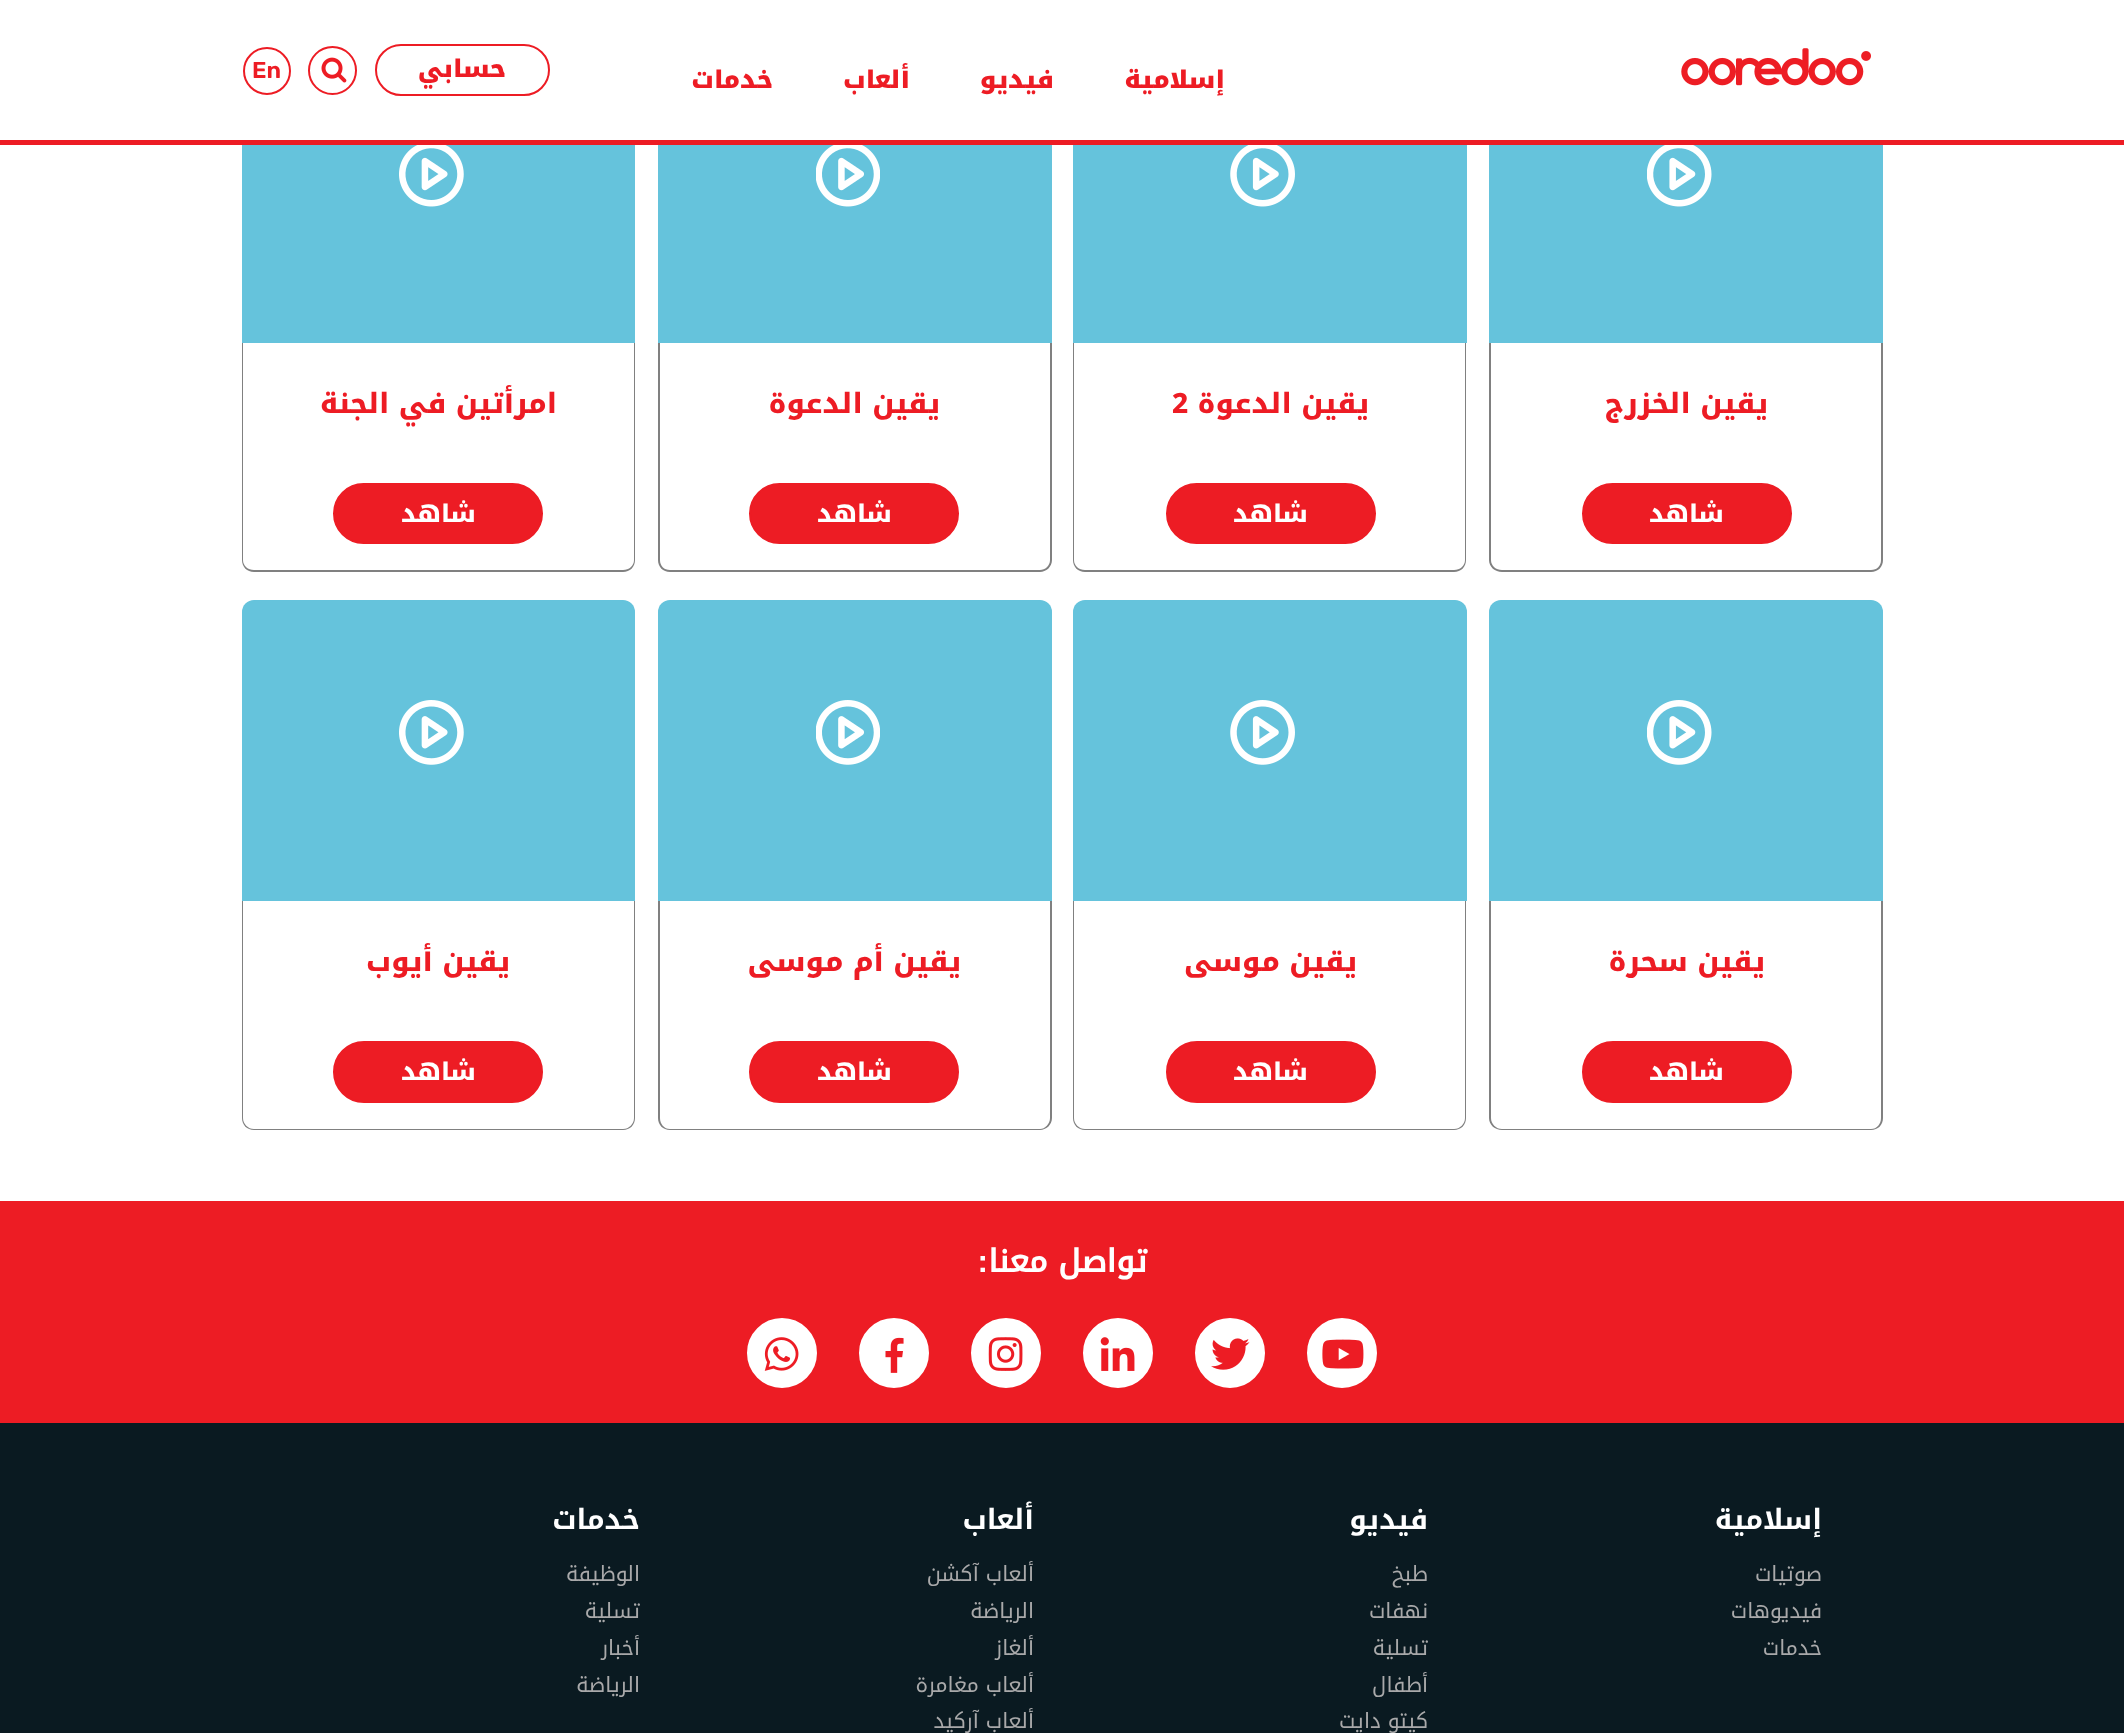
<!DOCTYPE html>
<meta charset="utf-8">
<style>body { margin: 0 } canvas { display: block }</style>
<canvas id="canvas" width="2124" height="1733"></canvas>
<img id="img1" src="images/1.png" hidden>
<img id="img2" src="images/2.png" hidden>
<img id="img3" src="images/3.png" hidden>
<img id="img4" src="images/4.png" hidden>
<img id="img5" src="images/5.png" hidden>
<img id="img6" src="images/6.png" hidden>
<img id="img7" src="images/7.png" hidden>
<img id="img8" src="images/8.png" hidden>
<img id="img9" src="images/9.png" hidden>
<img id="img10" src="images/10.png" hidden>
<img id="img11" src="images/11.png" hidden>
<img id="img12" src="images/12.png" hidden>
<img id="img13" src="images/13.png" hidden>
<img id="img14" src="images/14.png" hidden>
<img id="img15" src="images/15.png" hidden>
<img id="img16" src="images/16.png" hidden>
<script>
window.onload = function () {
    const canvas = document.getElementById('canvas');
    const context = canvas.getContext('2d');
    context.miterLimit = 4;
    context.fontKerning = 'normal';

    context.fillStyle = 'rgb(255, 255, 255)';
    context.fillRect(0, 0, 2124, 1733);
    context.fillStyle = 'rgb(237, 28, 36)';
    context.fillRect(0, 140, 2124, 5);
    context.drawImage(document.getElementById('img1'), 1681, 48, 190, 38);
    context.beginPath();
    context.roundRect(376, 45, 173, 50, 25);
    context.strokeStyle = 'rgb(237, 28, 36)';
    context.lineWidth = 2;
    context.stroke();
    context.beginPath();
    context.arc(332.5, 70.5, 23.5, 0, 2 * Math.PI);
    context.stroke();
    context.drawImage(document.getElementById('img2'), 321, 57, 26, 26);
    context.beginPath();
    context.arc(267, 71, 23, 0, 2 * Math.PI);
    context.stroke();
    context.fillStyle = 'rgb(101, 195, 220)';
    context.fillRect(1489, 145, 394, 198);
    context.drawImage(document.getElementById('img3'), 1647, 145, 65, 62);
    context.fillStyle = 'rgb(128, 128, 128)';
    context.beginPath();
    context.moveTo(1489, 343);
    context.lineTo(1883, 343);
    context.lineTo(1883, 560);
    context.bezierCurveTo(1883, 567, 1878, 572, 1871, 572);
    context.lineTo(1502, 572);
    context.bezierCurveTo(1495, 572, 1489, 567, 1489, 560);
    context.closePath();
    context.moveTo(1491, 343);
    context.lineTo(1881, 343);
    context.lineTo(1881, 560);
    context.bezierCurveTo(1881, 566, 1877, 570, 1871, 570);
    context.lineTo(1502, 570);
    context.bezierCurveTo(1496, 570, 1491, 566, 1491, 560);
    context.closePath();
    context.fill('evenodd');
    context.fillStyle = 'rgb(237, 28, 36)';
    context.beginPath();
    context.roundRect(1583, 484, 208, 59, 29.5);
    context.fill();
    context.stroke();
    context.fillStyle = 'rgb(101, 195, 220)';
    context.fillRect(1073, 145, 394, 198);
    context.drawImage(document.getElementById('img4'), 1230, 145, 65, 62);
    context.fillStyle = 'rgb(128, 128, 128)';
    context.beginPath();
    context.moveTo(1073, 343);
    context.lineTo(1466, 343);
    context.lineTo(1466, 560);
    context.bezierCurveTo(1466, 567, 1461, 572, 1454, 572);
    context.lineTo(1085, 572);
    context.bezierCurveTo(1078, 572, 1073, 567, 1073, 560);
    context.closePath();
    context.moveTo(1074, 343);
    context.lineTo(1465, 343);
    context.lineTo(1465, 560);
    context.bezierCurveTo(1465, 566, 1460, 570, 1454, 570);
    context.lineTo(1085, 570);
    context.bezierCurveTo(1079, 570, 1074, 566, 1074, 560);
    context.closePath();
    context.fill('evenodd');
    context.fillStyle = 'rgb(237, 28, 36)';
    context.beginPath();
    context.roundRect(1167, 484, 208, 59, 29.5);
    context.fill();
    context.stroke();
    context.fillStyle = 'rgb(101, 195, 220)';
    context.fillRect(658, 145, 394, 198);
    context.drawImage(document.getElementById('img5'), 816, 145, 64, 62);
    context.fillStyle = 'rgb(128, 128, 128)';
    context.beginPath();
    context.moveTo(658, 343);
    context.lineTo(1052, 343);
    context.lineTo(1052, 560);
    context.bezierCurveTo(1052, 567, 1046, 572, 1040, 572);
    context.lineTo(670, 572);
    context.bezierCurveTo(663, 572, 658, 567, 658, 560);
    context.closePath();
    context.moveTo(660, 343);
    context.lineTo(1050, 343);
    context.lineTo(1050, 560);
    context.bezierCurveTo(1050, 566, 1045, 570, 1040, 570);
    context.lineTo(670, 570);
    context.bezierCurveTo(664, 570, 660, 566, 660, 560);
    context.closePath();
    context.fill('evenodd');
    context.fillStyle = 'rgb(237, 28, 36)';
    context.beginPath();
    context.roundRect(750, 484, 208, 59, 29.5);
    context.fill();
    context.stroke();
    context.fillStyle = 'rgb(101, 195, 220)';
    context.fillRect(242, 145, 393, 198);
    context.drawImage(document.getElementById('img6'), 399, 145, 65, 62);
    context.fillStyle = 'rgb(128, 128, 128)';
    context.beginPath();
    context.moveTo(242, 343);
    context.lineTo(635, 343);
    context.lineTo(635, 560);
    context.bezierCurveTo(635, 567, 630, 572, 623, 572);
    context.lineTo(254, 572);
    context.bezierCurveTo(247, 572, 242, 567, 242, 560);
    context.closePath();
    context.moveTo(243, 343);
    context.lineTo(634, 343);
    context.lineTo(634, 560);
    context.bezierCurveTo(634, 566, 629, 570, 623, 570);
    context.lineTo(254, 570);
    context.bezierCurveTo(248, 570, 243, 566, 243, 560);
    context.closePath();
    context.fill('evenodd');
    context.fillStyle = 'rgb(237, 28, 36)';
    context.beginPath();
    context.roundRect(334, 484, 208, 59, 29.5);
    context.fill();
    context.stroke();
    context.fillStyle = 'rgb(101, 195, 220)';
    context.beginPath();
    context.roundRect(1489, 600, 394, 301, [12, 12, 0, 0]);
    context.fill();
    context.drawImage(document.getElementById('img7'), 1647, 700, 65, 65);
    context.fillStyle = 'rgb(128, 128, 128)';
    context.beginPath();
    context.moveTo(1489, 901);
    context.lineTo(1883, 901);
    context.lineTo(1883, 1118);
    context.bezierCurveTo(1883, 1125, 1878, 1130, 1871, 1130);
    context.lineTo(1502, 1130);
    context.bezierCurveTo(1495, 1130, 1489, 1125, 1489, 1118);
    context.closePath();
    context.moveTo(1491, 901);
    context.lineTo(1881, 901);
    context.lineTo(1881, 1118);
    context.bezierCurveTo(1881, 1124, 1877, 1129, 1871, 1129);
    context.lineTo(1502, 1129);
    context.bezierCurveTo(1496, 1129, 1491, 1124, 1491, 1118);
    context.closePath();
    context.fill('evenodd');
    context.fillStyle = 'rgb(237, 28, 36)';
    context.beginPath();
    context.roundRect(1583, 1042, 208, 60, 30);
    context.fill();
    context.stroke();
    context.fillStyle = 'rgb(101, 195, 220)';
    context.beginPath();
    context.roundRect(1073, 600, 394, 301, [12, 12, 0, 0]);
    context.fill();
    context.drawImage(document.getElementById('img8'), 1230, 700, 65, 65);
    context.fillStyle = 'rgb(128, 128, 128)';
    context.beginPath();
    context.moveTo(1073, 901);
    context.lineTo(1466, 901);
    context.lineTo(1466, 1118);
    context.bezierCurveTo(1466, 1125, 1461, 1130, 1454, 1130);
    context.lineTo(1085, 1130);
    context.bezierCurveTo(1078, 1130, 1073, 1125, 1073, 1118);
    context.closePath();
    context.moveTo(1074, 901);
    context.lineTo(1465, 901);
    context.lineTo(1465, 1118);
    context.bezierCurveTo(1465, 1124, 1460, 1129, 1454, 1129);
    context.lineTo(1085, 1129);
    context.bezierCurveTo(1079, 1129, 1074, 1124, 1074, 1118);
    context.closePath();
    context.fill('evenodd');
    context.fillStyle = 'rgb(237, 28, 36)';
    context.beginPath();
    context.roundRect(1167, 1042, 208, 60, 30);
    context.fill();
    context.stroke();
    context.fillStyle = 'rgb(101, 195, 220)';
    context.beginPath();
    context.roundRect(658, 600, 394, 301, [12, 12, 0, 0]);
    context.fill();
    context.drawImage(document.getElementById('img9'), 816, 700, 64, 65);
    context.fillStyle = 'rgb(128, 128, 128)';
    context.beginPath();
    context.moveTo(658, 901);
    context.lineTo(1052, 901);
    context.lineTo(1052, 1118);
    context.bezierCurveTo(1052, 1125, 1046, 1130, 1040, 1130);
    context.lineTo(670, 1130);
    context.bezierCurveTo(663, 1130, 658, 1125, 658, 1118);
    context.closePath();
    context.moveTo(660, 901);
    context.lineTo(1050, 901);
    context.lineTo(1050, 1118);
    context.bezierCurveTo(1050, 1124, 1045, 1129, 1040, 1129);
    context.lineTo(670, 1129);
    context.bezierCurveTo(664, 1129, 660, 1124, 660, 1118);
    context.closePath();
    context.fill('evenodd');
    context.fillStyle = 'rgb(237, 28, 36)';
    context.beginPath();
    context.roundRect(750, 1042, 208, 60, 30);
    context.fill();
    context.stroke();
    context.fillStyle = 'rgb(101, 195, 220)';
    context.beginPath();
    context.roundRect(242, 600, 393, 301, [12, 12, 0, 0]);
    context.fill();
    context.drawImage(document.getElementById('img10'), 399, 700, 65, 65);
    context.fillStyle = 'rgb(128, 128, 128)';
    context.beginPath();
    context.moveTo(242, 901);
    context.lineTo(635, 901);
    context.lineTo(635, 1118);
    context.bezierCurveTo(635, 1125, 630, 1130, 623, 1130);
    context.lineTo(254, 1130);
    context.bezierCurveTo(247, 1130, 242, 1125, 242, 1118);
    context.closePath();
    context.moveTo(243, 901);
    context.lineTo(634, 901);
    context.lineTo(634, 1118);
    context.bezierCurveTo(634, 1124, 629, 1129, 623, 1129);
    context.lineTo(254, 1129);
    context.bezierCurveTo(248, 1129, 243, 1124, 243, 1118);
    context.closePath();
    context.fill('evenodd');
    context.fillStyle = 'rgb(237, 28, 36)';
    context.beginPath();
    context.roundRect(334, 1042, 208, 60, 30);
    context.fill();
    context.stroke();
    context.fillRect(0, 1201, 2124, 222);
    context.fillStyle = 'rgb(255, 255, 255)';
    context.beginPath();
    context.arc(1342, 1353, 33, 0, 2 * Math.PI);
    context.fill();
    context.strokeStyle = 'rgb(255, 255, 255)';
    context.lineWidth = 4;
    context.stroke();
    context.drawImage(document.getElementById('img11'), 1322, 1339, 42, 30);
    context.beginPath();
    context.arc(1230, 1353, 33, 0, 2 * Math.PI);
    context.fill();
    context.stroke();
    context.drawImage(document.getElementById('img12'), 1211, 1338, 39, 32);
    context.beginPath();
    context.arc(1118, 1353, 33, 0, 2 * Math.PI);
    context.fill();
    context.stroke();
    context.drawImage(document.getElementById('img13'), 1100, 1337, 35, 34);
    context.beginPath();
    context.arc(1006, 1353, 33, 0, 2 * Math.PI);
    context.fill();
    context.stroke();
    context.drawImage(document.getElementById('img14'), 988, 1337, 35, 34);
    context.beginPath();
    context.arc(894, 1353, 33, 0, 2 * Math.PI);
    context.fill();
    context.stroke();
    context.drawImage(document.getElementById('img15'), 885, 1337, 19, 36);
    context.beginPath();
    context.arc(782, 1353, 33, 0, 2 * Math.PI);
    context.fill();
    context.stroke();
    context.drawImage(document.getElementById('img16'), 764, 1337, 35, 34);
    context.fillStyle = 'rgb(10, 26, 33)';
    context.fillRect(0, 1423, 2124, 310);
    context.direction = 'rtl';
    context.font = '900 24.5px Noto Kufi Arabic';
    context.fillStyle = 'rgb(237, 28, 36)';
    context.fillText('إسلامية', 1225, 88);
    context.fillText('فيديو', 1054, 88);
    context.fillText('ألعاب', 910, 88);
    context.fillText('خدمات', 773, 88);
    context.fillText('حسابي', 506, 77);
    context.direction = 'ltr';
    context.font = '600 23px Rubik';
    context.fillText('En', 252, 78);
    context.direction = 'rtl';
    context.font = '800 28px Noto Kufi Arabic';
    context.fillText('يقين الخزرج', 1768, 413);
    context.font = '800 24.5px Noto Kufi Arabic';
    context.fillStyle = 'rgb(255, 255, 255)';
    context.fillText('شاهد', 1724, 522);
    context.font = '800 28px Noto Kufi Arabic';
    context.fillStyle = 'rgb(237, 28, 36)';
    context.fillText('يقين الدعوة', 1369, 413);
    context.direction = 'ltr';
    context.fillText('2', 1172, 413);
    context.direction = 'rtl';
    context.font = '800 24.5px Noto Kufi Arabic';
    context.fillStyle = 'rgb(255, 255, 255)';
    context.fillText('شاهد', 1308, 522);
    context.font = '800 28px Noto Kufi Arabic';
    context.fillStyle = 'rgb(237, 28, 36)';
    context.fillText('يقين الدعوة', 940, 413);
    context.font = '800 24.5px Noto Kufi Arabic';
    context.fillStyle = 'rgb(255, 255, 255)';
    context.fillText('شاهد', 892, 522);
    context.font = '800 28px Noto Kufi Arabic';
    context.fillStyle = 'rgb(237, 28, 36)';
    context.fillText('امرأتين في الجنة', 557, 413);
    context.font = '800 24.5px Noto Kufi Arabic';
    context.fillStyle = 'rgb(255, 255, 255)';
    context.fillText('شاهد', 476, 522);
    context.font = '800 28px Noto Kufi Arabic';
    context.fillStyle = 'rgb(237, 28, 36)';
    context.fillText('يقين سحرة', 1765, 971);
    context.font = '800 24.5px Noto Kufi Arabic';
    context.fillStyle = 'rgb(255, 255, 255)';
    context.fillText('شاهد', 1724, 1080);
    context.font = '800 28px Noto Kufi Arabic';
    context.fillStyle = 'rgb(237, 28, 36)';
    context.fillText('يقين موسى', 1357, 971);
    context.font = '800 24.5px Noto Kufi Arabic';
    context.fillStyle = 'rgb(255, 255, 255)';
    context.fillText('شاهد', 1308, 1080);
    context.font = '800 28px Noto Kufi Arabic';
    context.fillStyle = 'rgb(237, 28, 36)';
    context.fillText('يقين أم موسى', 961, 971);
    context.font = '800 24.5px Noto Kufi Arabic';
    context.fillStyle = 'rgb(255, 255, 255)';
    context.fillText('شاهد', 892, 1080);
    context.font = '800 28px Noto Kufi Arabic';
    context.fillStyle = 'rgb(237, 28, 36)';
    context.fillText('يقين أيوب', 510, 971);
    context.font = '800 24.5px Noto Kufi Arabic';
    context.fillStyle = 'rgb(255, 255, 255)';
    context.fillText('شاهد', 476, 1080);
    context.font = 'bold 31.5px Noto Kufi Arabic';
    context.fillText('تواصل معنا', 1147, 1272);
    context.font = 'bold 31.5px Liberation Sans';
    context.fillText(':', 988, 1272);
    context.font = 'bold 28px "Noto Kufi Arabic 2"';
    context.fillText('إسلامية', 1822, 1529);
    context.font = '21px Noto Kufi Arabic';
    context.fillStyle = 'rgb(169, 169, 170)';
    context.fillText('صوتيات', 1822, 1581);
    context.fillText('فيديوهات', 1822, 1618);
    context.fillText('خدمات', 1822, 1655);
    context.font = 'bold 28px "Noto Kufi Arabic 2"';
    context.fillStyle = 'rgb(255, 255, 255)';
    context.fillText('فيديو', 1428, 1529);
    context.font = '21px Noto Kufi Arabic';
    context.fillStyle = 'rgb(169, 169, 170)';
    context.fillText('طبخ', 1428, 1581);
    context.fillText('نهفات', 1428, 1618);
    context.fillText('تسلية', 1428, 1655);
    context.fillText('أطفال', 1428, 1692);
    context.fillText('كيتو دايت', 1428, 1728);
    context.font = 'bold 28px "Noto Kufi Arabic 2"';
    context.fillStyle = 'rgb(255, 255, 255)';
    context.fillText('ألعاب', 1034, 1529);
    context.font = '21px Noto Kufi Arabic';
    context.fillStyle = 'rgb(169, 169, 170)';
    context.fillText('ألعاب آكشن', 1034, 1581);
    context.fillText('الرياضة', 1034, 1618);
    context.fillText('ألغاز', 1034, 1655);
    context.fillText('ألعاب مغامرة', 1034, 1692);
    context.fillText('ألعاب آركيد', 1034, 1728);
    context.font = 'bold 28px "Noto Kufi Arabic 2"';
    context.fillStyle = 'rgb(255, 255, 255)';
    context.fillText('خدمات', 640, 1529);
    context.font = '21px Noto Kufi Arabic';
    context.fillStyle = 'rgb(169, 169, 170)';
    context.fillText('الوظيفة', 640, 1581);
    context.fillText('تسلية', 640, 1618);
    context.fillText('أخبار', 640, 1655);
    context.fillText('الرياضة', 640, 1692);
};
</script>
